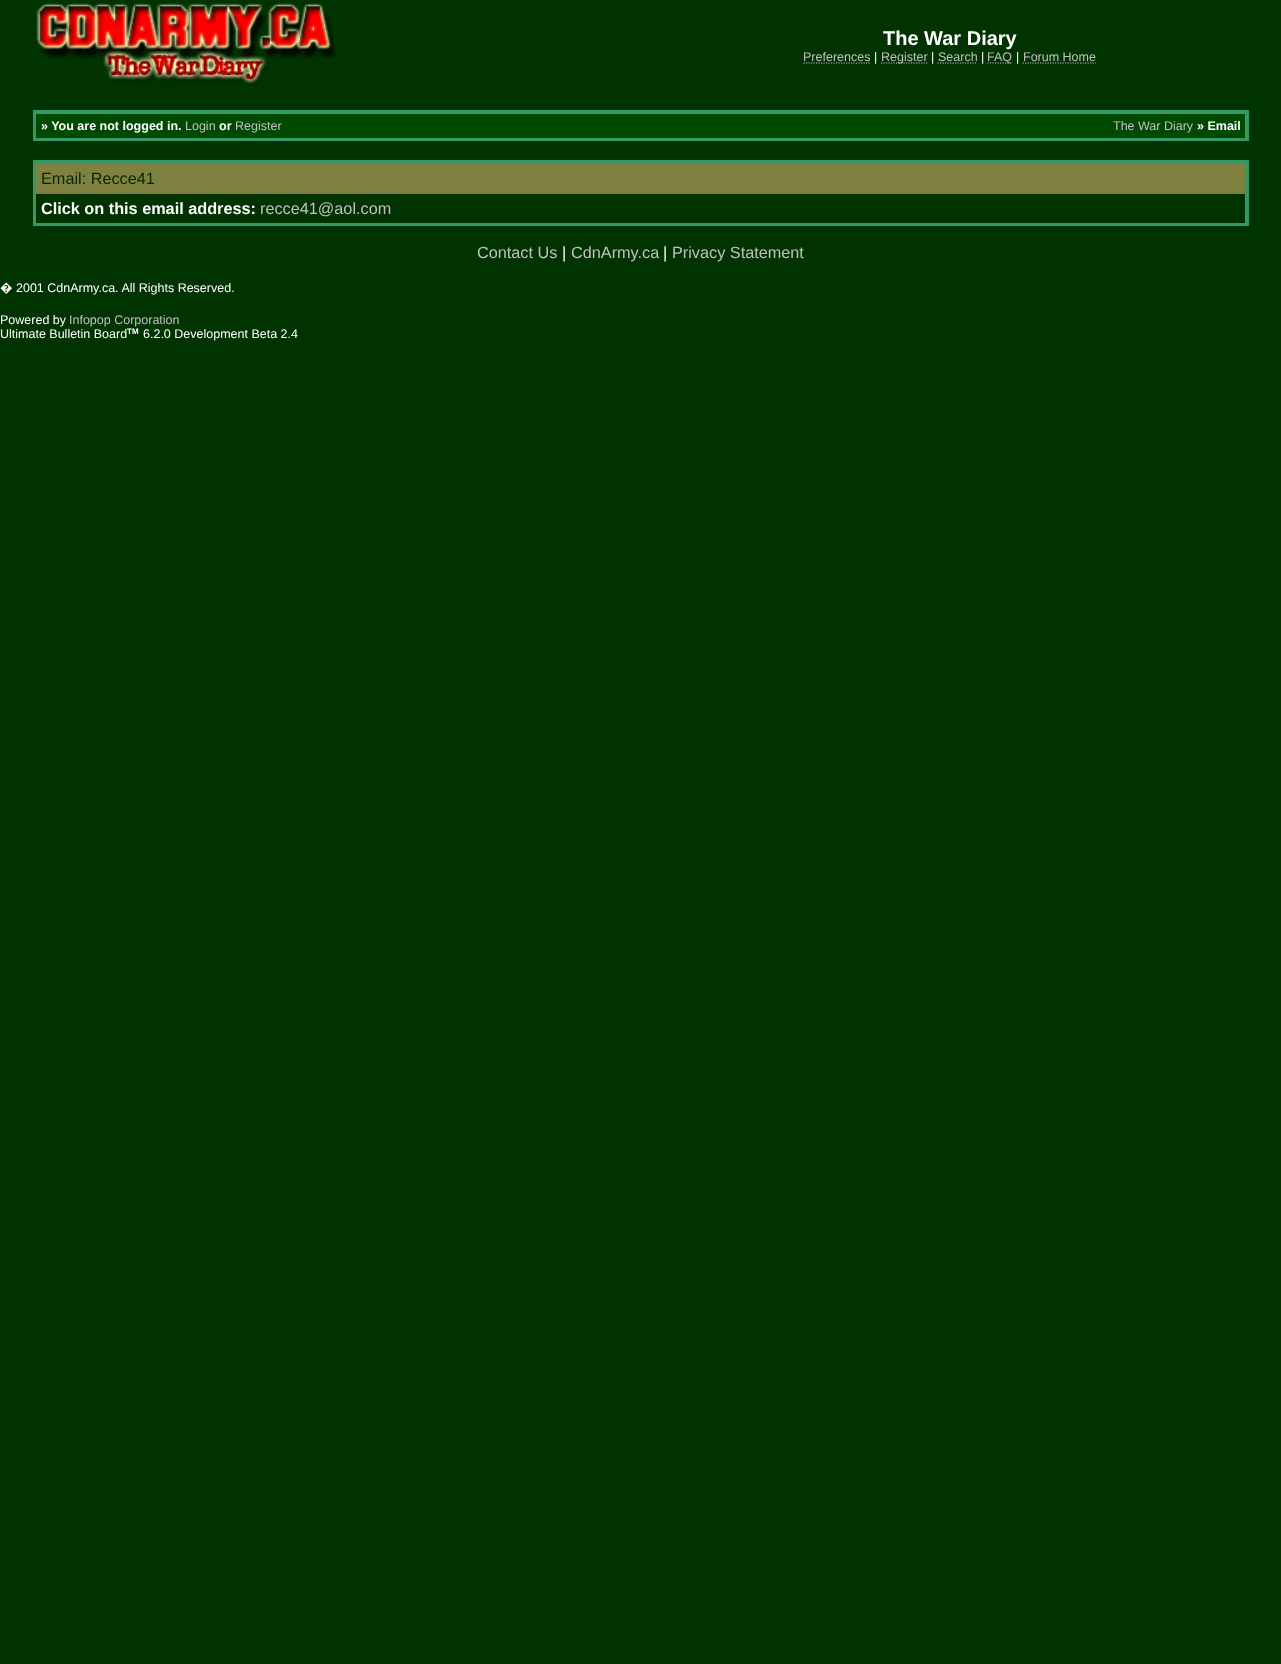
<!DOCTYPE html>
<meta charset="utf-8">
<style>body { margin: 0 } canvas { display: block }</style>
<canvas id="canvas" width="1281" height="1664"></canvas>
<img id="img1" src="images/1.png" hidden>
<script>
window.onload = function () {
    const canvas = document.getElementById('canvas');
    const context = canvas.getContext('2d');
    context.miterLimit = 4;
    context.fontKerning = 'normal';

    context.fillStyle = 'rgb(0, 51, 0)';
    context.fillRect(0, 0, 1281, 1664);
    context.drawImage(document.getElementById('img1'), 36, 3, 300, 83);
    context.beginPath();
    context.moveTo(803.5, 63);
    context.lineTo(870.5, 63);
    context.strokeStyle = 'rgb(192, 192, 192)';
    context.lineWidth = 1.2;
    context.setLineDash([1.25, 1.25]);
    context.stroke();
    context.beginPath();
    context.moveTo(881, 63);
    context.lineTo(927.5, 63);
    context.stroke();
    context.beginPath();
    context.moveTo(937.5, 63);
    context.lineTo(977, 63);
    context.stroke();
    context.beginPath();
    context.moveTo(987.5, 63);
    context.lineTo(1012.5, 63);
    context.stroke();
    context.beginPath();
    context.moveTo(1022.5, 63);
    context.lineTo(1095.5, 63);
    context.stroke();
    context.fillStyle = 'rgb(51, 153, 102)';
    context.fillRect(33, 110, 1216, 31);
    context.fillStyle = 'rgb(0, 73, 0)';
    context.fillRect(36, 114, 1209, 24);
    context.fillStyle = 'rgb(51, 153, 102)';
    context.fillRect(33, 160, 1216, 66);
    context.fillStyle = 'rgb(128, 128, 64)';
    context.fillRect(36, 164, 1209, 29);
    context.fillStyle = 'rgb(0, 51, 0)';
    context.fillRect(36, 194, 1209, 29);
    context.font = 'bold 20px Liberation Sans';
    context.fillStyle = 'rgb(255, 255, 255)';
    context.fillText('The War Diary', 883, 45);
    context.font = '12.5px Liberation Sans';
    context.fillStyle = 'rgb(192, 192, 192)';
    context.fillText('Preferences', 803, 61);
    context.fillStyle = 'rgb(255, 255, 255)';
    context.fillText('|', 874, 61);
    context.fillStyle = 'rgb(192, 192, 192)';
    context.fillText('Register', 881, 61);
    context.fillStyle = 'rgb(255, 255, 255)';
    context.fillText('|', 931, 61);
    context.fillStyle = 'rgb(192, 192, 192)';
    context.fillText('Search', 938, 61);
    context.fillStyle = 'rgb(255, 255, 255)';
    context.fillText('|', 981, 61);
    context.fillStyle = 'rgb(192, 192, 192)';
    context.fillText('FAQ', 987, 61);
    context.fillStyle = 'rgb(255, 255, 255)';
    context.fillText('|', 1016, 61);
    context.fillStyle = 'rgb(192, 192, 192)';
    context.fillText('Forum Home', 1023, 61);
    context.font = 'bold 12.5px Liberation Sans';
    context.fillStyle = 'rgb(255, 255, 255)';
    context.fillText('» You are not logged in.', 41, 130);
    context.font = '12.5px Liberation Sans';
    context.fillStyle = 'rgb(192, 192, 192)';
    context.fillText('Login', 185, 130);
    context.font = 'bold 12.5px Liberation Sans';
    context.fillStyle = 'rgb(255, 255, 255)';
    context.fillText('or', 219, 130);
    context.font = '12.5px Liberation Sans';
    context.fillStyle = 'rgb(192, 192, 192)';
    context.fillText('Register', 235, 130);
    context.fillText('The War Diary', 1113, 130);
    context.font = 'bold 12.5px Liberation Sans';
    context.fillStyle = 'rgb(255, 255, 255)';
    context.fillText('» Email', 1197, 130);
    context.font = '16.25px Liberation Sans';
    context.fillStyle = 'rgb(0, 41, 0)';
    context.fillText('Email: Recce41', 41, 184);
    context.font = 'bold 16.25px Liberation Sans';
    context.fillStyle = 'rgb(255, 255, 255)';
    context.fillText('Click on this email address:', 41, 214);
    context.font = '16.25px Liberation Sans';
    context.fillStyle = 'rgb(192, 192, 192)';
    context.fillText('recce41@aol.com', 260, 214);
    context.fillText('Contact Us', 477, 258);
    context.fillStyle = 'rgb(255, 255, 255)';
    context.fillText('|', 562, 258);
    context.fillStyle = 'rgb(192, 192, 192)';
    context.fillText('CdnArmy.ca', 571, 258);
    context.fillStyle = 'rgb(255, 255, 255)';
    context.fillText('|', 663, 258);
    context.fillStyle = 'rgb(192, 192, 192)';
    context.fillText('Privacy Statement', 672, 258);
    context.font = '12.5px Noto Sans';
    context.fillStyle = 'rgb(255, 255, 255)';
    context.fillText('�', 0, 292);
    context.font = '12.5px Liberation Sans';
    context.fillText('2001 CdnArmy.ca. All Rights Reserved.', 16, 292);
    context.fillText('Powered by', 0, 324);
    context.fillStyle = 'rgb(192, 192, 192)';
    context.fillText('Infopop Corporation', 69, 324);
    context.fillStyle = 'rgb(255, 255, 255)';
    context.fillText('Ultimate Bulletin Board', 0, 338);
    context.font = 'bold 8px Liberation Sans';
    context.fillText('TM', 127, 334);
    context.font = '12.5px Liberation Sans';
    context.fillText('6.2.0 Development Beta 2.4', 143, 338);
};
</script>
